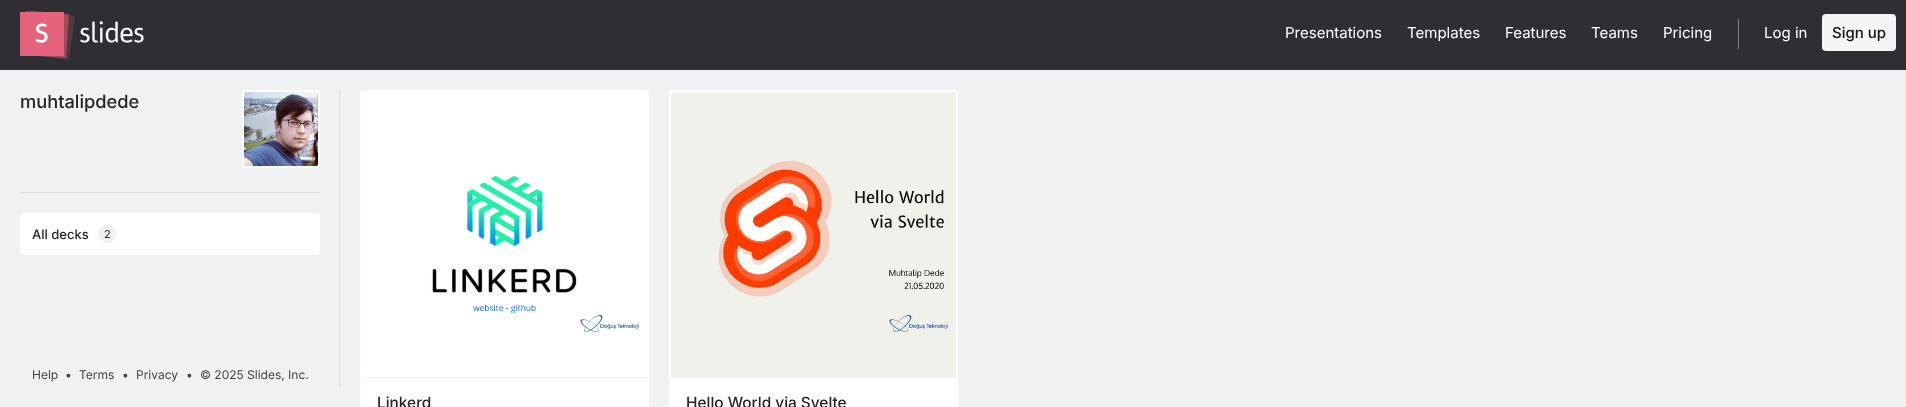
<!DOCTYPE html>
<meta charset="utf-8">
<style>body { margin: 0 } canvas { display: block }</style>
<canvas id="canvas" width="1906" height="407"></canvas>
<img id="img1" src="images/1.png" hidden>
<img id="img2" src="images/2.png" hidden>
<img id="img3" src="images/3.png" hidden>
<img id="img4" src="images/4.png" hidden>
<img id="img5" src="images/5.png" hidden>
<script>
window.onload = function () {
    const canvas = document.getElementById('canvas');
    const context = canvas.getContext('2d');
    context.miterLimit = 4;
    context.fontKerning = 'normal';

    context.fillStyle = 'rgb(240, 241, 242)';
    context.fillRect(0, 0, 1906, 407);
    context.fillStyle = 'rgb(47, 47, 51)';
    context.fillRect(0, 0, 1906, 69);
    context.fillStyle = 'rgb(51, 51, 51)';
    context.fillRect(0, 69, 1906, 1);
    context.fillStyle = 'rgb(83, 57, 66)';
    context.beginPath();
    context.moveTo(31, 10);
    context.lineTo(75, 16);
    context.lineTo(69, 60);
    context.lineTo(25, 54);
    context.closePath();
    context.fill();
    context.fillStyle = 'rgba(229, 99, 124, 0.5)';
    context.beginPath();
    context.moveTo(26, 11);
    context.lineTo(69, 14);
    context.lineTo(66, 58);
    context.lineTo(23, 55);
    context.closePath();
    context.fill();
    context.fillStyle = 'rgb(229, 99, 124)';
    context.fillRect(20, 12, 44, 44);
    context.drawImage(document.getElementById('img1'), 35, 23, 13, 20);
    context.drawImage(document.getElementById('img2'), 80, 21, 64, 22);
    context.fillStyle = 'rgb(130, 130, 133)';
    context.fillRect(1738, 19, 1, 30);
    context.fillStyle = 'rgb(245, 245, 245)';
    context.beginPath();
    context.roundRect(1822, 14, 74, 37, 4);
    context.fill();
    context.fillStyle = 'rgb(221, 221, 221)';
    context.fillRect(20, 192, 300, 1);
    context.drawImage(document.getElementById('img3'), 244, 92, 74, 74);
    context.beginPath();
    context.roundRect(243, 91, 76, 76, 3);
    context.strokeStyle = 'rgb(255, 255, 255)';
    context.lineWidth = 2;
    context.stroke();
    context.fillRect(339, 90, 1, 297);
    context.fillStyle = 'rgb(255, 255, 255)';
    context.beginPath();
    context.roundRect(20, 213, 300, 42, 4);
    context.fill();
    context.fillStyle = 'rgb(242, 242, 242)';
    context.beginPath();
    context.roundRect(98, 225, 19, 18, 9);
    context.fill();
    context.fillStyle = 'rgb(255, 255, 255)';
    context.beginPath();
    context.roundRect(360, 90, 289, 317, [4, 4, 0, 0]);
    context.fill();
    context.fillStyle = 'rgb(242, 242, 242)';
    context.fillRect(362, 377, 285, 1);
    context.drawImage(document.getElementById('img4'), 362, 92, 285, 285);
    context.fillStyle = 'rgb(255, 255, 255)';
    context.beginPath();
    context.roundRect(669, 90, 289, 317, [4, 4, 0, 0]);
    context.fill();
    context.fillStyle = 'rgb(242, 242, 242)';
    context.fillRect(671, 377, 285, 1);
    context.drawImage(document.getElementById('img5'), 671, 92, 285, 285);
    context.font = '15px Inter';
    context.fillStyle = 'rgb(255, 255, 255)';
    context.fillText('Presentations', 1285, 38);
    context.fillText('Templates', 1407, 38);
    context.fillText('Features', 1505, 38);
    context.fillText('Teams', 1591, 38);
    context.fillText('Pricing', 1663, 38);
    context.fillText('Log in', 1764, 38);
    context.font = '500 15px Inter';
    context.fillStyle = 'rgb(17, 17, 17)';
    context.fillText('Sign up', 1832, 38);
    context.font = '500 18.25px Inter';
    context.fillStyle = 'rgb(37, 37, 37)';
    context.fillText('muhtalipdede', 20, 108);
    context.font = '500 13px Inter';
    context.fillText('All decks', 32, 239);
    context.font = '11px Inter';
    context.fillText('2', 104, 238);
    context.font = '12px Inter';
    context.fillStyle = 'rgb(68, 68, 68)';
    context.fillText('Help', 32, 379);
    context.fillText('•', 65, 379);
    context.fillText('Terms', 79, 379);
    context.fillText('•', 122, 379);
    context.fillText('Privacy', 136, 379);
    context.fillText('•', 186, 379);
    context.fillText('© 2025 Slides, Inc.', 200, 379);
    context.font = '500 15.4px Inter';
    context.fillStyle = 'rgb(37, 37, 37)';
    context.fillText('Linkerd', 377, 408);
    context.fillText('Hello World via Svelte', 686, 408);
};
</script>
